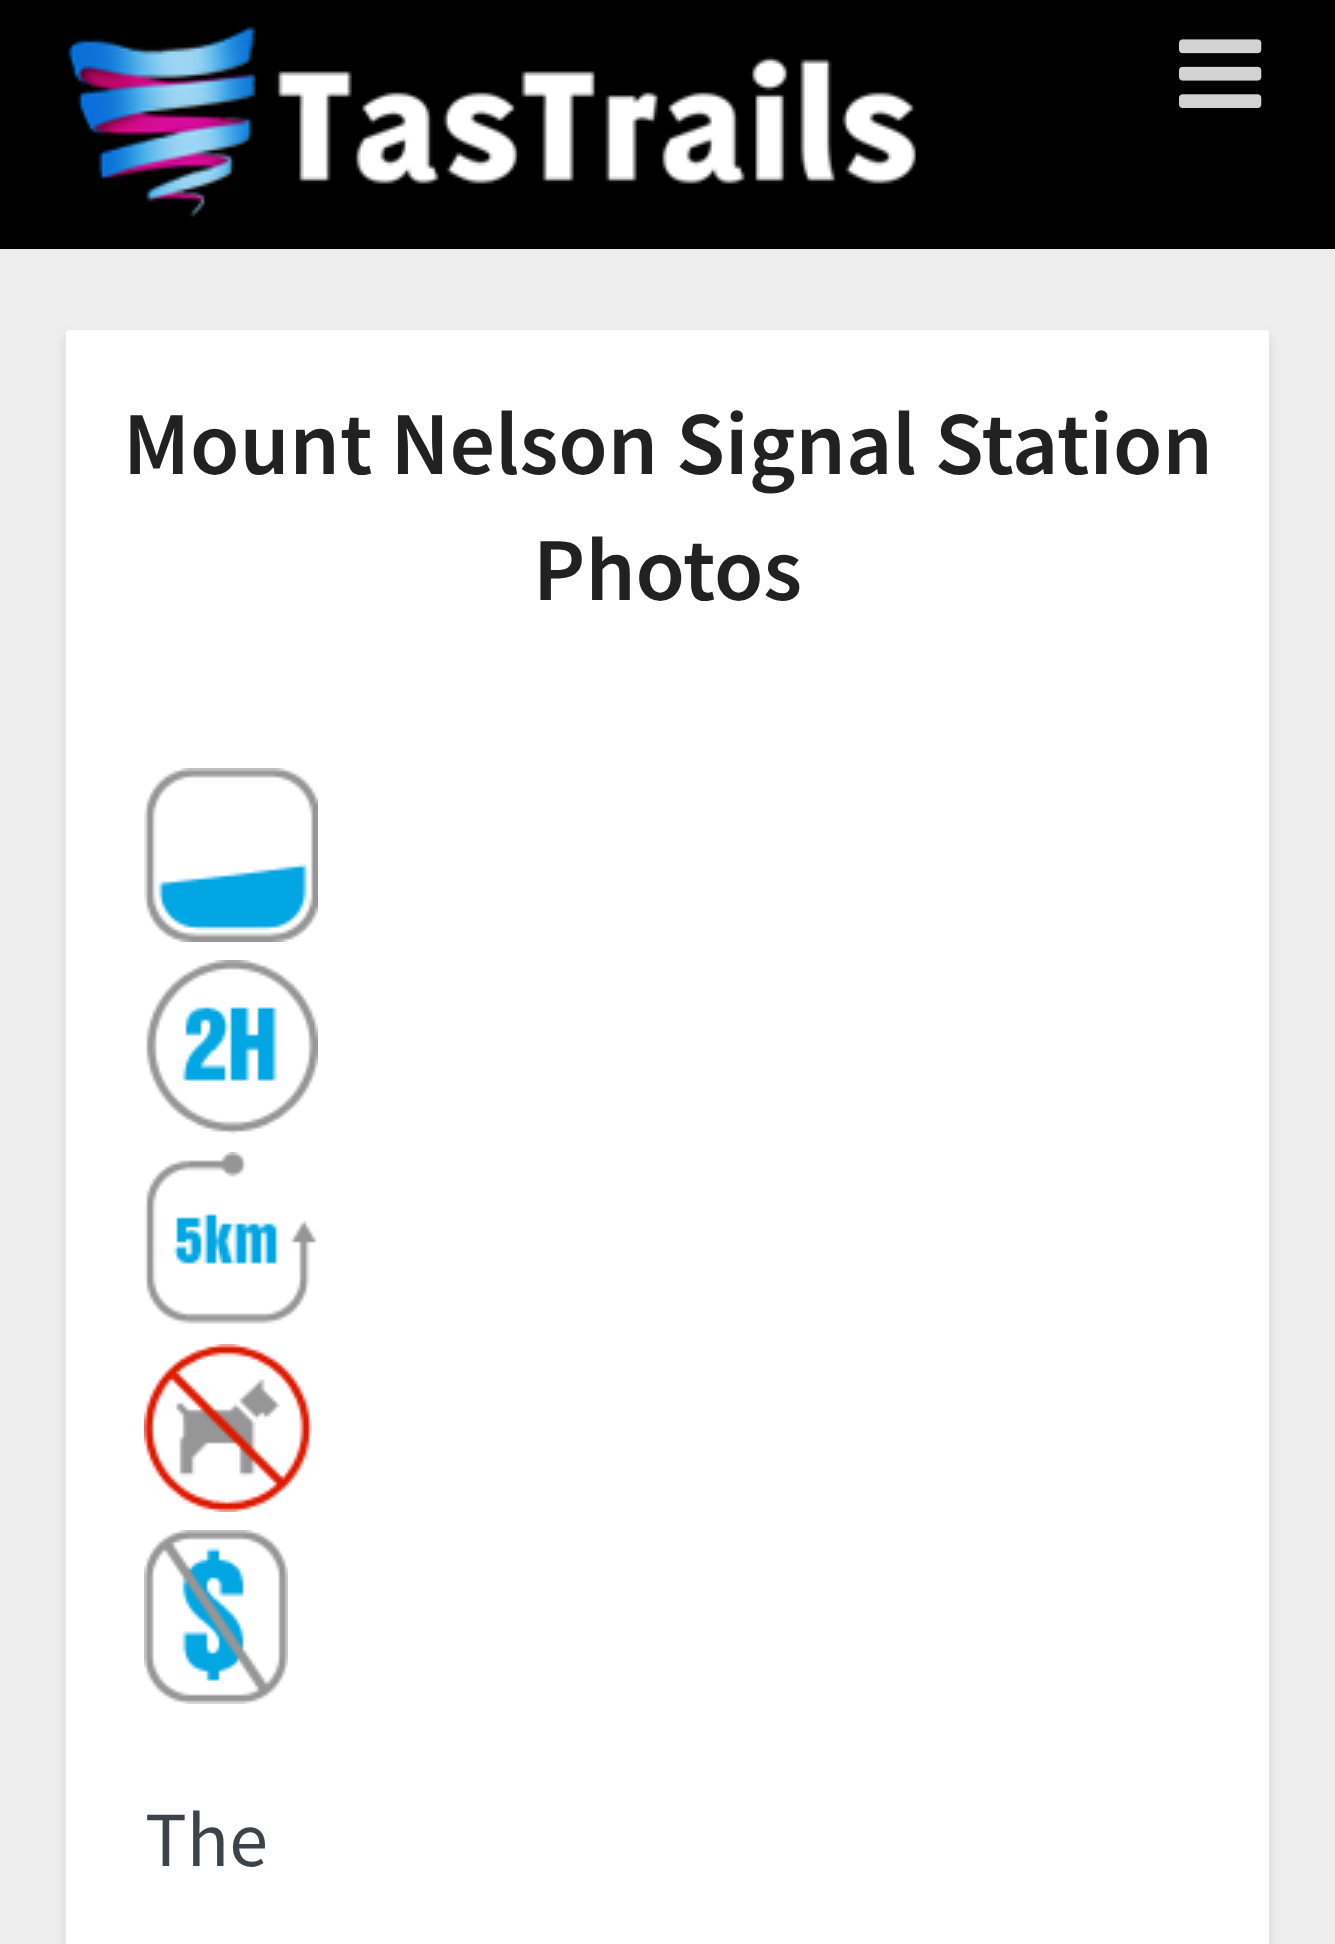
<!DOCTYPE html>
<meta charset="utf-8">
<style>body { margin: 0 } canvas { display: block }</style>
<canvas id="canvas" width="1335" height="1944"></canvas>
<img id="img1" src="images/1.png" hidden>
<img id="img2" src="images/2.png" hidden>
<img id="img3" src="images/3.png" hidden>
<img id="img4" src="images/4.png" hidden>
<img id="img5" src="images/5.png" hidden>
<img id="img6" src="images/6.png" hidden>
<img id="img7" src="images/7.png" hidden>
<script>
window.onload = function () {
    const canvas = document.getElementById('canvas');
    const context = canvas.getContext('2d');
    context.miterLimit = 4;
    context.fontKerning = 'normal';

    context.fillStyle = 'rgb(238, 238, 238)';
    context.fillRect(0, 0, 1335, 1944);
    context.fillStyle = 'rgb(0, 0, 0)';
    context.fillRect(0, 0, 1335, 249);
    context.drawImage(document.getElementById('img1'), 68, 26, 848, 191);
    context.drawImage(document.getElementById('img2'), 1179, 39, 83, 69);
    context.fillStyle = 'rgba(0, 0, 0, 0.1)';
    context.filter = 'blur(6px)';
    context.beginPath();
    context.roundRect(66, 336, 1203, 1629, 3);
    context.fill();
    context.filter = 'none';
    context.fillStyle = 'rgb(255, 255, 255)';
    context.beginPath();
    context.roundRect(66, 330, 1203, 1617, 3);
    context.fill();
    context.drawImage(document.getElementById('img3'), 144, 768, 174, 174);
    context.drawImage(document.getElementById('img4'), 146, 960, 172, 174);
    context.drawImage(document.getElementById('img5'), 144, 1152, 174, 172);
    context.drawImage(document.getElementById('img6'), 144, 1344, 168, 168);
    context.drawImage(document.getElementById('img7'), 144, 1530, 144, 174);
    context.font = '600 90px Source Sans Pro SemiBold';
    context.fillStyle = 'rgb(33, 33, 33)';
    context.fillText('Mount Nelson Signal Station', 123, 474);
    context.fillText('Photos', 533, 600);
    context.font = '78px Source Sans Pro';
    context.fillStyle = 'rgb(60, 67, 74)';
    context.fillText('The', 145, 1866);
};
</script>
